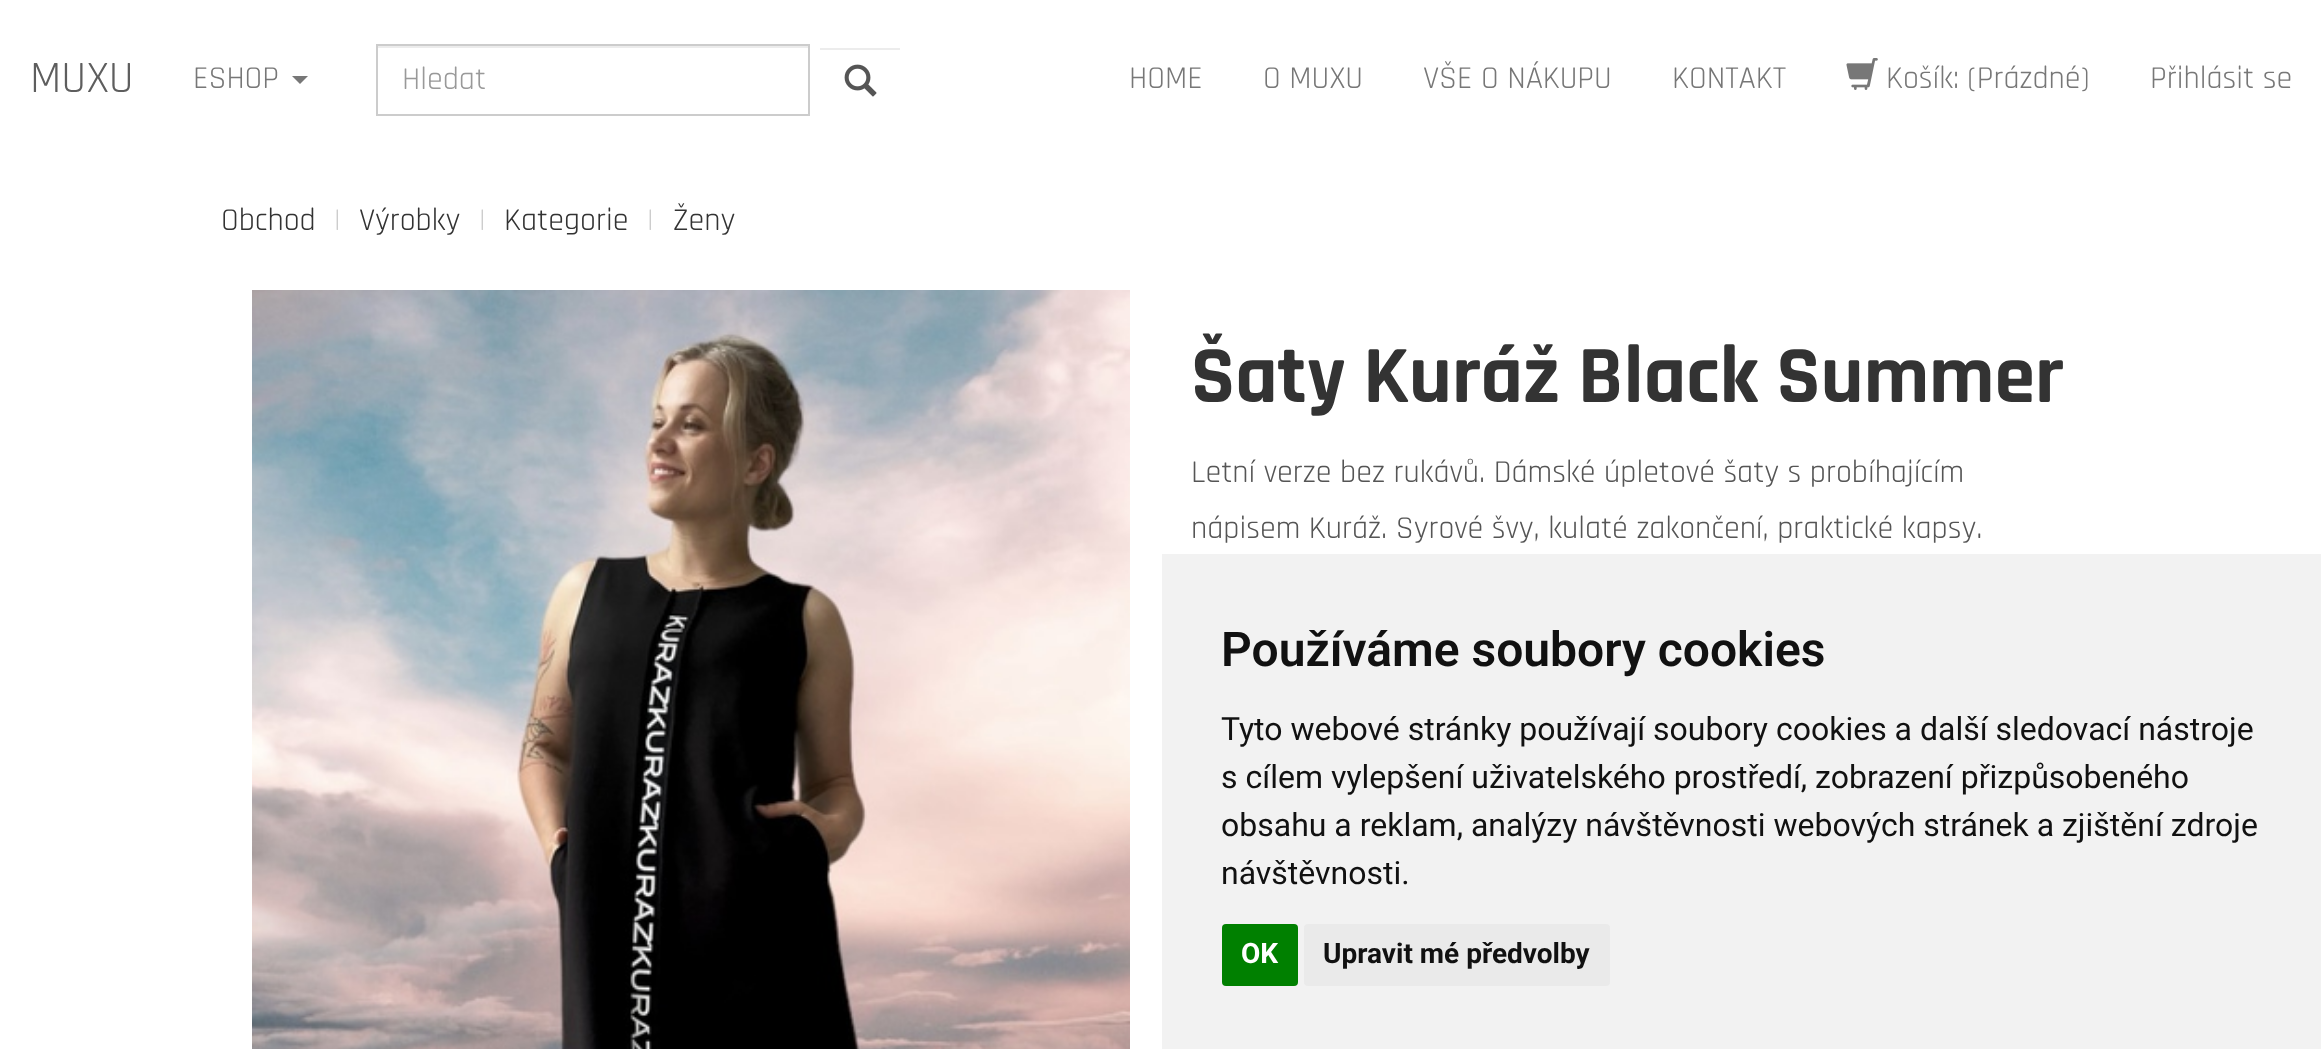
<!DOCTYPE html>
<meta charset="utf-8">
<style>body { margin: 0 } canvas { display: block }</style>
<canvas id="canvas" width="2321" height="1049"></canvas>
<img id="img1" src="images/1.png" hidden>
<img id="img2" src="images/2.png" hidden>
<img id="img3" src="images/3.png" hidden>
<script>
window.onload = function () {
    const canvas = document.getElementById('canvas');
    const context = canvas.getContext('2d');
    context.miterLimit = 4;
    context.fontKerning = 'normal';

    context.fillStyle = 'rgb(255, 255, 255)';
    context.fillRect(0, 0, 2321, 1049);
    context.fillStyle = 'rgb(119, 119, 119)';
    context.beginPath();
    context.moveTo(292, 76);
    context.lineTo(308, 76);
    context.lineTo(300, 84);
    context.closePath();
    context.fill();
    context.fillStyle = 'rgb(236, 236, 236)';
    context.fillRect(378, 46, 430, 2);
    context.strokeStyle = 'rgb(204, 204, 204)';
    context.lineWidth = 2;
    context.strokeRect(377, 45, 432, 70);
    context.fillRect(820, 48, 80, 2);
    context.drawImage(document.getElementById('img1'), 844, 64, 33, 33);
    context.drawImage(document.getElementById('img2'), 1846, 58, 32, 32);
    context.drawImage(document.getElementById('img3'), 252, 290, 878, 759);
    context.fillStyle = 'rgb(242, 242, 242)';
    context.fillRect(1162, 554, 1159, 495);
    context.fillStyle = 'rgb(0, 128, 0)';
    context.beginPath();
    context.roundRect(1222, 924, 76, 62, 4);
    context.fill();
    context.fillStyle = 'rgb(234, 234, 234)';
    context.beginPath();
    context.roundRect(1304, 924, 306, 62, 4);
    context.fill();
    context.font = '45px Rajdhani';
    context.fillStyle = 'rgb(94, 94, 94)';
    context.fillText('MUXU', 30, 92);
    context.font = '32px Rajdhani';
    context.fillStyle = 'rgb(119, 119, 119)';
    context.fillText('ESHOP', 193, 88);
    context.fillStyle = 'rgb(153, 153, 153)';
    context.fillText('Hledat', 402, 89);
    context.fillStyle = 'rgb(119, 119, 119)';
    context.fillText('HOME', 1129, 88);
    context.fillText('O MUXU', 1263, 88);
    context.fillText('VŠE O NÁKUPU', 1423, 88);
    context.fillText('KONTAKT', 1672, 88);
    context.fillText('Košík: (Prázdné)', 1886, 88);
    context.fillText('Přihlásit se', 2150, 88);
    context.fillStyle = 'rgb(51, 51, 51)';
    context.fillText('Obchod', 221, 230);
    context.fillStyle = 'rgb(204, 204, 204)';
    context.fillText('|', 334, 230);
    context.fillStyle = 'rgb(51, 51, 51)';
    context.fillText('Výrobky', 359, 230);
    context.fillStyle = 'rgb(204, 204, 204)';
    context.fillText('|', 479, 230);
    context.fillStyle = 'rgb(51, 51, 51)';
    context.fillText('Kategorie', 504, 230);
    context.fillStyle = 'rgb(204, 204, 204)';
    context.fillText('|', 647, 230);
    context.fillStyle = 'rgb(51, 51, 51)';
    context.fillText('Ženy', 673, 230);
    context.font = 'bold 82px Rajdhani';
    context.fillText('Šaty Kuráž Black Summer', 1191, 402);
    context.font = '32px Rajdhani';
    context.fillStyle = 'rgb(85, 85, 85)';
    context.fillText('Letní verze bez rukávů. Dámské úpletové šaty s probíhajícím', 1191, 482);
    context.fillText('nápisem Kuráž. Syrové švy, kulaté zakončení, praktické kapsy.', 1191, 538);
    context.font = '600 48px Roboto';
    context.fillStyle = 'rgb(17, 17, 17)';
    context.fillText('Používáme soubory cookies', 1221, 666);
    context.font = '32px Roboto';
    context.fillText('Tyto webové stránky používají soubory cookies a další sledovací nástroje', 1221, 740);
    context.fillText('s cílem vylepšení uživatelského prostředí, zobrazení přizpůsobeného', 1221, 788);
    context.fillText('obsahu a reklam, analýzy návštěvnosti webových stránek a zjištění zdroje', 1221, 836);
    context.fillText('návštěvnosti.', 1221, 884);
    context.font = 'bold 28px Roboto';
    context.fillStyle = 'rgb(255, 255, 255)';
    context.fillText('OK', 1241, 963);
    context.fillStyle = 'rgb(17, 17, 17)';
    context.fillText('Upravit mé předvolby', 1323, 963);
};
</script>
